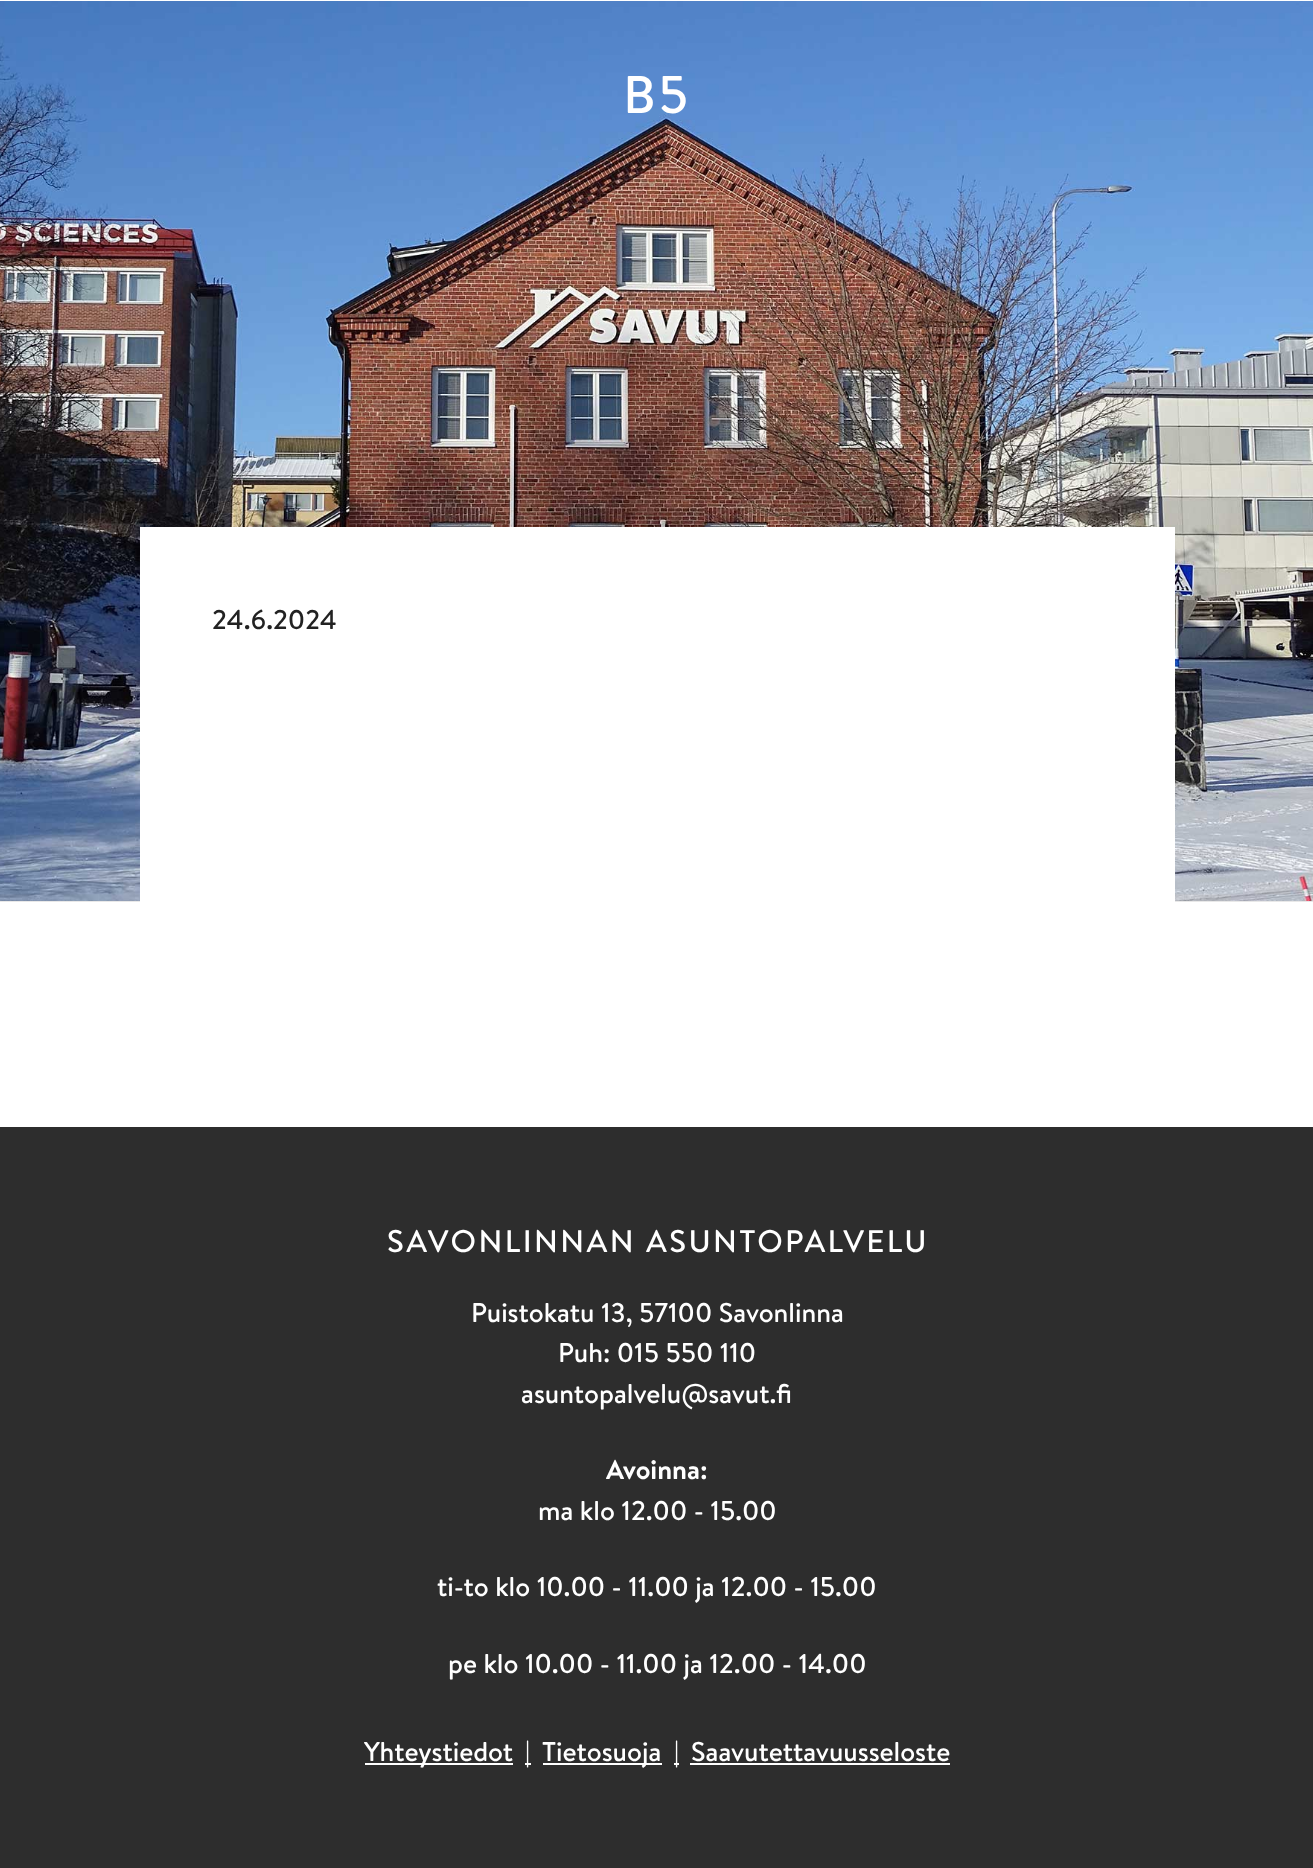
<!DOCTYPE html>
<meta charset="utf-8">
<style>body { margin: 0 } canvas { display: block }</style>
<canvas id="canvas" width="1313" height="1868"></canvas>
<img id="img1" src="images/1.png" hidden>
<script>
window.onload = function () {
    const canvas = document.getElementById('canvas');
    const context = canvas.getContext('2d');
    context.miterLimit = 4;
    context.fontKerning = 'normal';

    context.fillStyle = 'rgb(255, 255, 255)';
    context.fillRect(0, 0, 1313, 1868);
    context.fillStyle = 'rgb(232, 232, 232)';
    context.fillRect(0, 901, 1313, 1);
    context.drawImage(document.getElementById('img1'), 0, 1, 1313, 900);
    context.fillStyle = 'rgb(255, 255, 255)';
    context.fillRect(140, 527, 1035, 375);
    context.fillStyle = 'rgb(45, 45, 45)';
    context.fillRect(0, 1127, 1313, 741);
    context.fillStyle = 'rgb(255, 255, 255)';
    context.fillRect(365, 1763, 148, 2);
    context.fillRect(525, 1763, 6, 2);
    context.fillRect(543, 1763, 119, 2);
    context.fillRect(674, 1763, 5, 2);
    context.fillRect(690, 1763, 260, 2);
    context.letterSpacing = '2.4px';
    context.font = '500 53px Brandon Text';
    context.fillText('B5', 623, 113);
    context.letterSpacing = '0px';
    context.font = '500 27px Brandon Text';
    context.fillStyle = 'rgb(34, 34, 34)';
    context.fillText('24.6.2024', 212, 629);
    context.letterSpacing = '2.4px';
    context.font = '500 31.25px Brandon Text';
    context.fillStyle = 'rgb(255, 255, 255)';
    context.fillText('SAVONLINNAN ASUNTOPALVELU', 387, 1252);
    context.letterSpacing = '0px';
    context.font = '500 27px Brandon Text';
    context.fillText('Puistokatu 13, 57100 Savonlinna', 471, 1322);
    context.fillText('Puh: 015 550 110', 558, 1362);
    context.fillText('asuntopalvelu@savut.fi', 521, 1403);
    context.font = 'bold 27px Brandon Text';
    context.fillText('Avoinna:', 606, 1479);
    context.font = '500 27px Brandon Text';
    context.fillText('ma klo 12.00 - 15.00', 538, 1520);
    context.fillText('ti-to klo 10.00 - 11.00 ja 12.00 - 15.00', 437, 1596);
    context.fillText('pe klo 10.00 - 11.00 ja 12.00 - 14.00', 448, 1673);
    context.fillText('Yhteystiedot', 364, 1761);
    context.fillText('|', 525, 1761);
    context.fillText('Tietosuoja', 542, 1761);
    context.fillText('|', 674, 1761);
    context.fillText('Saavutettavuusseloste', 691, 1761);
};
</script>
